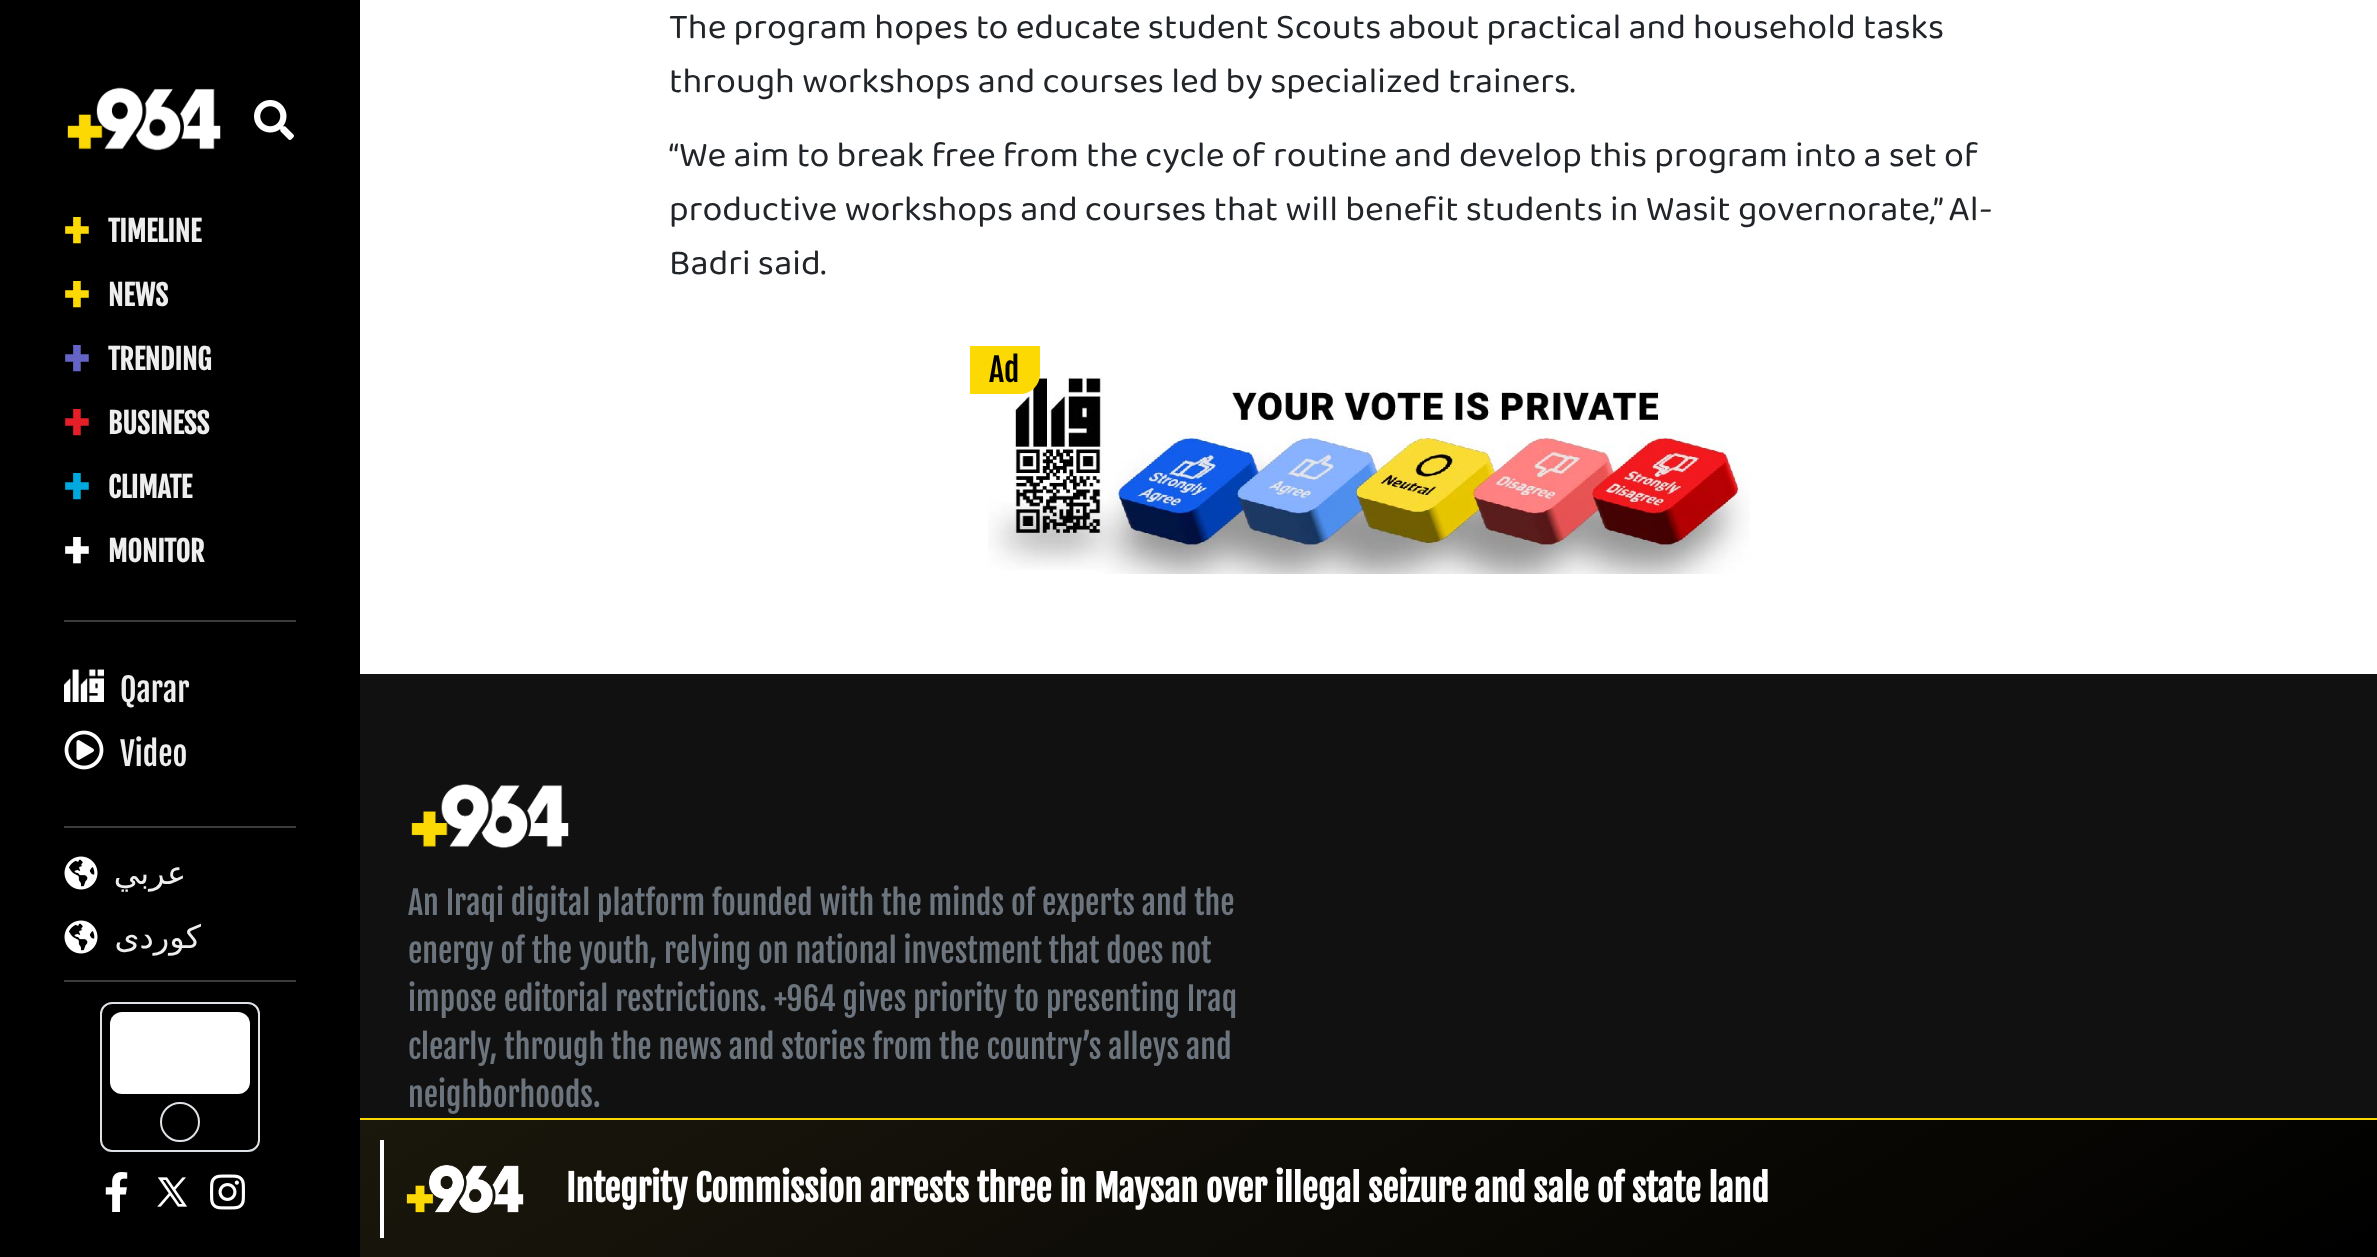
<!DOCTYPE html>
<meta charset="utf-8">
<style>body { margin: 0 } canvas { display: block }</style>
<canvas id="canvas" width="2377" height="1257"></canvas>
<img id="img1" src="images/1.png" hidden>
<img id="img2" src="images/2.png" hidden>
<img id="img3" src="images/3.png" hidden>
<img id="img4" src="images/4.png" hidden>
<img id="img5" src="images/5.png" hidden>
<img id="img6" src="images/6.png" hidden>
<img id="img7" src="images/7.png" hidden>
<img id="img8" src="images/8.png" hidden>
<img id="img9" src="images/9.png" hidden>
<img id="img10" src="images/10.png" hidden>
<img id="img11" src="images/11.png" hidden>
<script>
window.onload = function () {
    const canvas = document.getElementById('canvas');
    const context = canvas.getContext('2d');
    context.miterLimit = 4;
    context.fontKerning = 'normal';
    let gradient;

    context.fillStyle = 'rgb(17, 17, 17)';
    context.fillRect(0, 0, 2377, 1257);
    context.fillStyle = 'rgb(0, 0, 0)';
    context.fillRect(0, 0, 360, 1257);
    context.drawImage(document.getElementById('img1'), 67, 87, 154, 64);
    context.drawImage(document.getElementById('img2'), 254, 100, 40, 40);
    context.fillStyle = 'rgb(59, 59, 59)';
    context.fillRect(64, 620, 232, 2);
    context.drawImage(document.getElementById('img3'), 64, 669, 40, 33);
    context.drawImage(document.getElementById('img4'), 64, 730, 40, 40);
    context.fillRect(64, 826, 232, 2);
    context.drawImage(document.getElementById('img5'), 64, 856, 34, 34);
    context.drawImage(document.getElementById('img5'), 64, 920, 34, 34);
    context.fillRect(64, 980, 232, 2);
    context.beginPath();
    context.roundRect(101, 1003, 158, 148, 11);
    context.strokeStyle = 'rgb(222, 226, 230)';
    context.lineWidth = 2;
    context.stroke();
    context.fillStyle = 'rgb(255, 255, 255)';
    context.beginPath();
    context.roundRect(110, 1012, 140, 82, 12);
    context.fill();
    context.beginPath();
    context.arc(180, 1122, 19, 0, 2 * Math.PI);
    context.stroke();
    context.drawImage(document.getElementById('img6'), 105, 1172, 23, 40);
    context.drawImage(document.getElementById('img7'), 157, 1177, 30, 30);
    context.drawImage(document.getElementById('img8'), 210, 1174, 35, 36);
    context.fillRect(360, 0, 2017, 674);
    context.drawImage(document.getElementById('img9'), 988, 376, 762, 198);
    context.fillStyle = 'rgb(252, 217, 3)';
    context.beginPath();
    context.roundRect(970, 346, 70, 48, [0, 0, 20, 0]);
    context.fill();
    context.drawImage(document.getElementById('img10'), 411, 784, 158, 65);
    gradient = context.createLinearGradient(1651, 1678, 1087, 700);
    gradient.addColorStop(0, 'rgb(0, 0, 0)');
    gradient.addColorStop(1, 'rgb(26, 23, 12)');
    context.fillStyle = gradient;
    context.fillRect(360, 1120, 2017, 137);
    context.fillStyle = 'rgb(252, 217, 3)';
    context.fillRect(360, 1118, 2017, 2);
    context.fillStyle = 'rgb(255, 255, 255)';
    context.fillRect(380, 1140, 4, 98);
    context.drawImage(document.getElementById('img11'), 406, 1165, 118, 48);
    context.font = 'bold 60px Fjalla One';
    context.fillStyle = 'rgb(252, 217, 3)';
    context.fillText('+', 64, 254);
    context.font = 'bold 28px Fjalla One';
    context.fillStyle = 'rgb(238, 238, 238)';
    context.fillText('TIMELINE', 108, 242);
    context.font = 'bold 60px Fjalla One';
    context.fillStyle = 'rgb(252, 217, 3)';
    context.fillText('+', 64, 318);
    context.font = 'bold 28px Fjalla One';
    context.fillStyle = 'rgb(238, 238, 238)';
    context.fillText('NEWS', 108, 306);
    context.font = 'bold 60px Fjalla One';
    context.fillStyle = 'rgb(100, 100, 198)';
    context.fillText('+', 64, 382);
    context.font = 'bold 28px Fjalla One';
    context.fillStyle = 'rgb(238, 238, 238)';
    context.fillText('TRENDING', 108, 370);
    context.font = 'bold 60px Fjalla One';
    context.fillStyle = 'rgb(229, 30, 39)';
    context.fillText('+', 64, 446);
    context.font = 'bold 28px Fjalla One';
    context.fillStyle = 'rgb(238, 238, 238)';
    context.fillText('BUSINESS', 108, 434);
    context.font = 'bold 60px Fjalla One';
    context.fillStyle = 'rgb(0, 169, 221)';
    context.fillText('+', 64, 510);
    context.font = 'bold 28px Fjalla One';
    context.fillStyle = 'rgb(238, 238, 238)';
    context.fillText('CLIMATE', 108, 498);
    context.font = 'bold 60px Fjalla One';
    context.fillStyle = 'rgb(255, 255, 255)';
    context.fillText('+', 64, 574);
    context.font = 'bold 28px Fjalla One';
    context.fillStyle = 'rgb(238, 238, 238)';
    context.fillText('MONITOR', 108, 562);
    context.font = '32px Fjalla One';
    context.fillText('Qarar', 120, 702);
    context.fillText('Video', 120, 766);
    context.direction = 'rtl';
    context.font = '32px DejaVu Sans';
    context.fillText('عربي', 186, 884);
    context.fillText('كوردى', 201, 948);
    context.direction = 'ltr';
    context.font = '36px "Baloo Bhaijaan 2"';
    context.fillStyle = 'rgb(33, 37, 41)';
    context.fillText('The program hopes to educate student Scouts about practical and household tasks', 669, 38);
    context.fillText('through workshops and courses led by specialized trainers.', 669, 92);
    context.fillText('“We aim to break free from the cycle of routine and develop this program into a set of', 669, 166);
    context.fillText('productive workshops and courses that will benefit students in Wasit governorate,” Al-', 669, 220);
    context.fillText('Badri said.', 669, 274);
    context.font = '32px Fjalla One';
    context.fillStyle = 'rgb(0, 0, 0)';
    context.fillText('Ad', 989, 382);
    context.fillStyle = 'rgb(108, 117, 125)';
    context.fillText('An Iraqi digital platform founded with the minds of experts and the', 408, 915);
    context.fillText('energy of the youth, relying on national investment that does not', 408, 963);
    context.fillText('impose editorial restrictions. +964 gives priority to presenting Iraq', 408, 1011);
    context.fillText('clearly, through the news and stories from the country’s alleys and', 408, 1059);
    context.fillText('neighborhoods.', 408, 1107);
    context.font = 'bold 36px Fjalla One';
    context.fillStyle = 'rgb(255, 255, 255)';
    context.fillText('Integrity Commission arrests three in Maysan over illegal seizure and sale of state land', 566, 1202);
};
</script>
